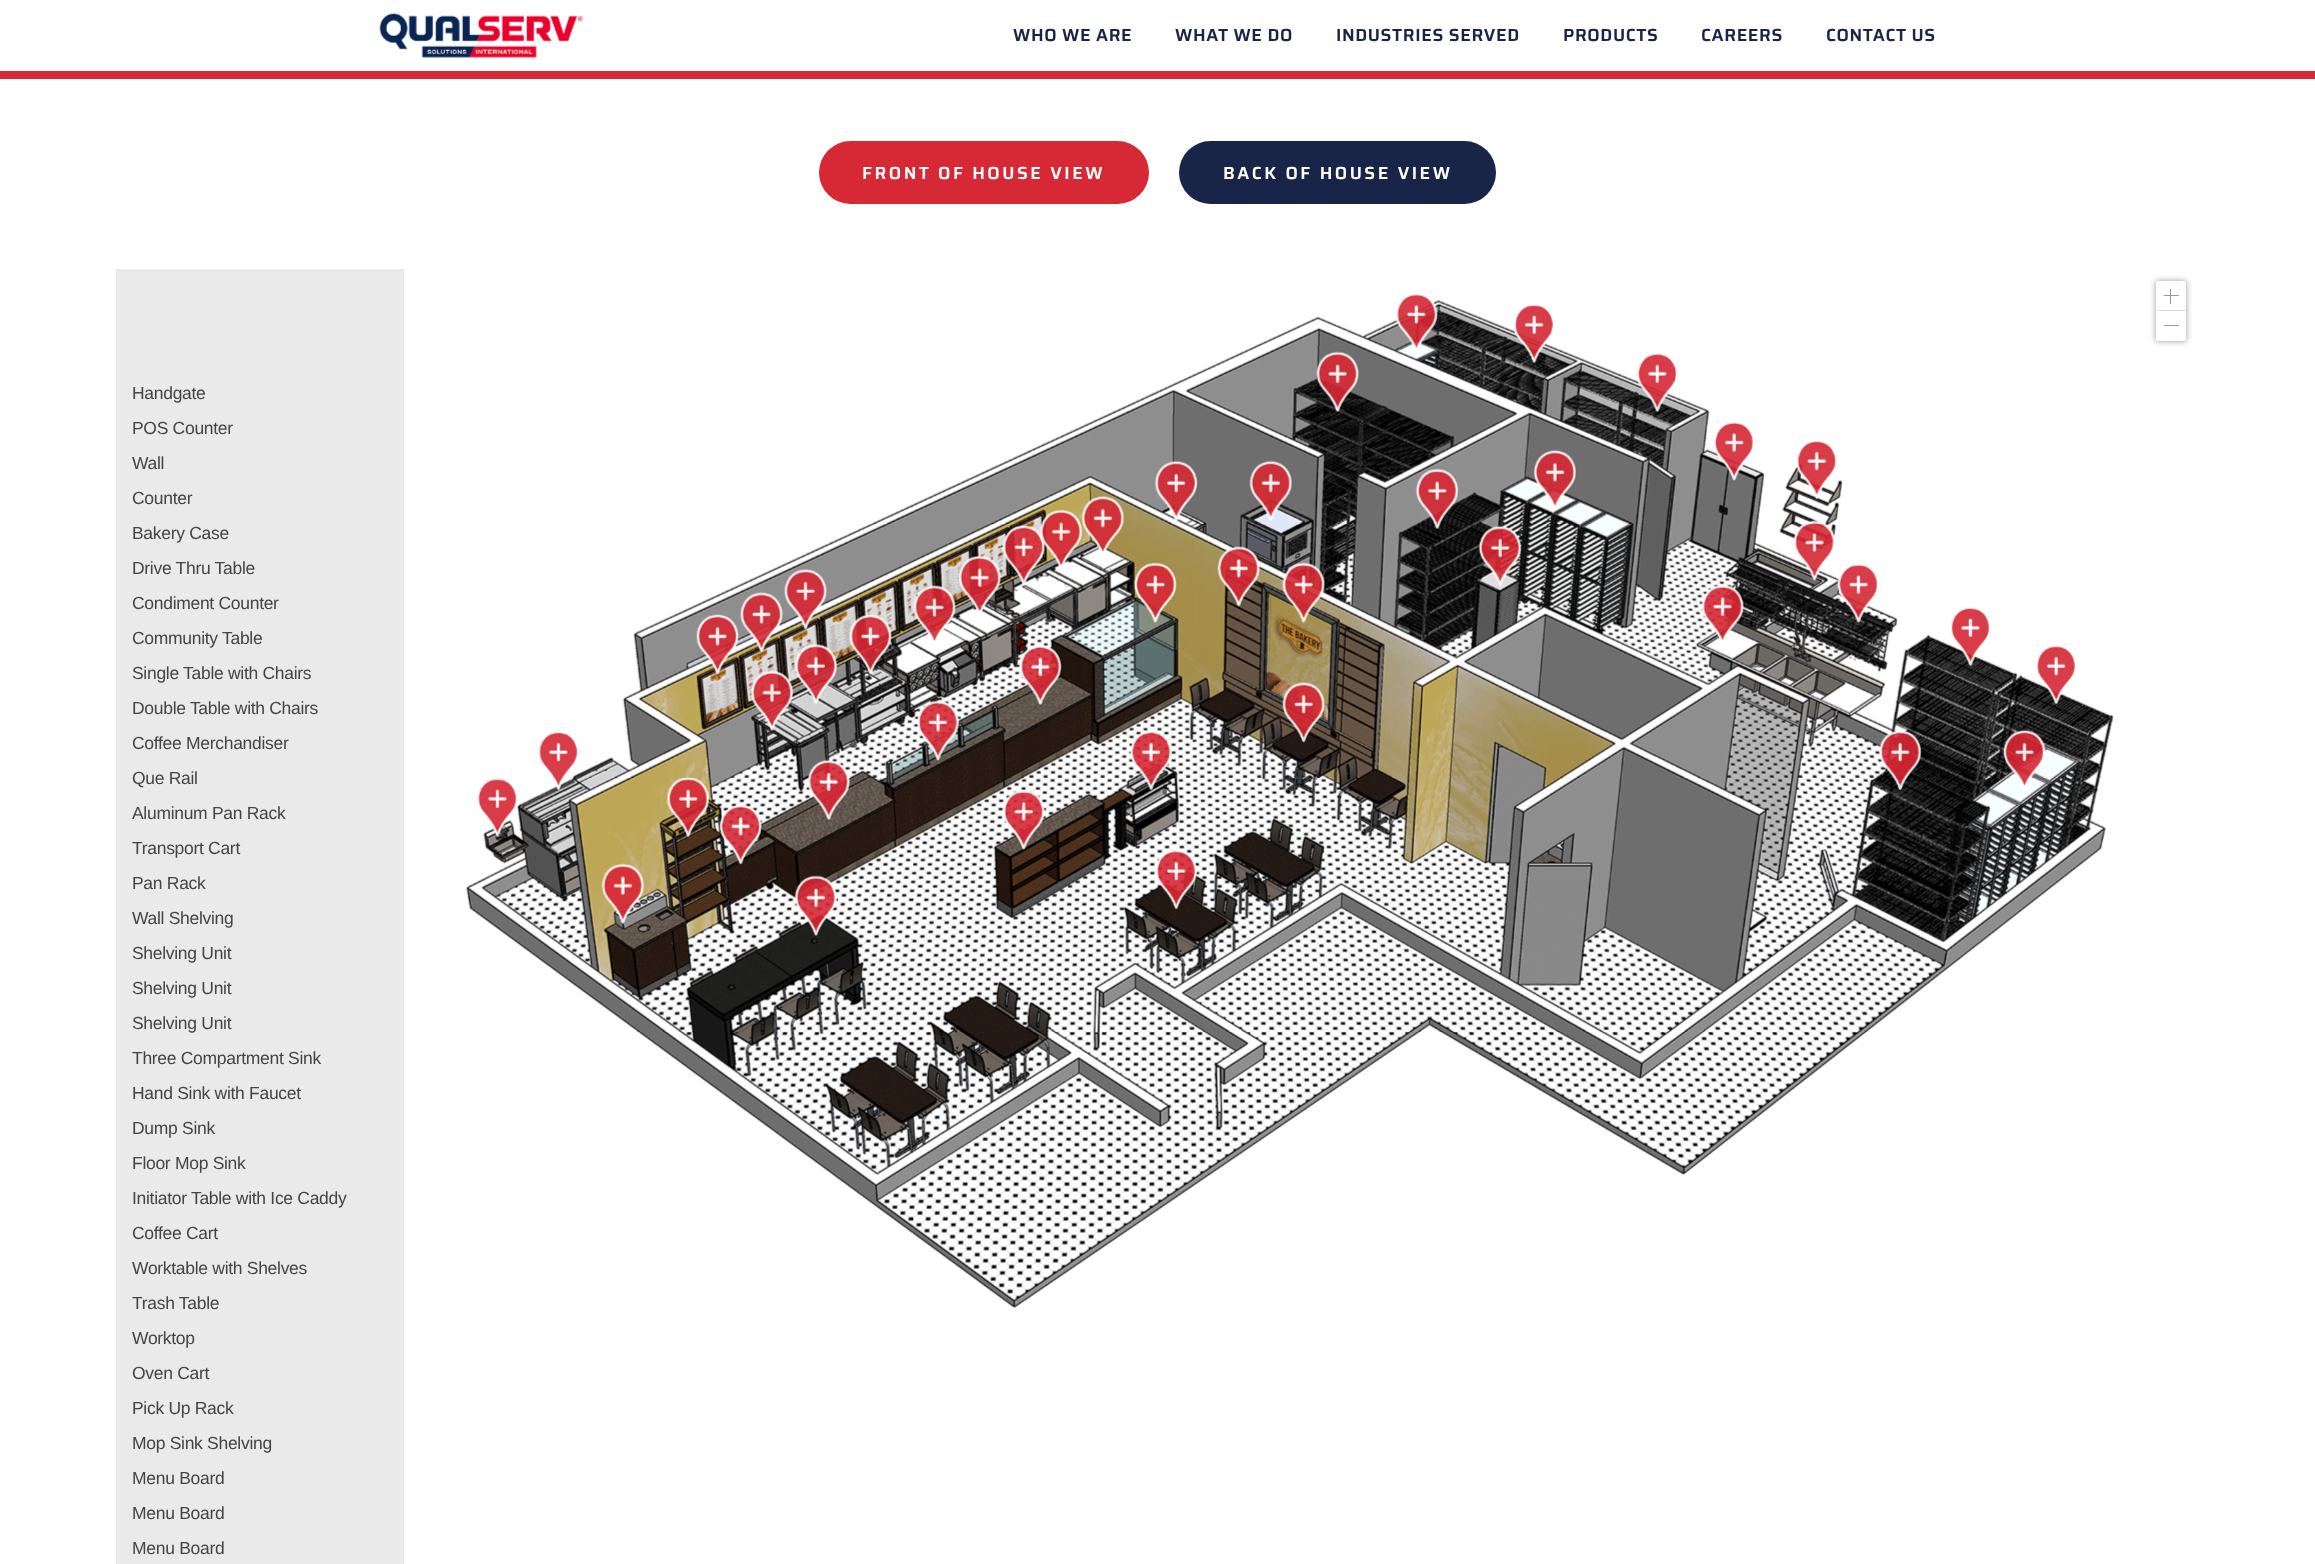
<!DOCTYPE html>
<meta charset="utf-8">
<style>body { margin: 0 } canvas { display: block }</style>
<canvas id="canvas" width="2315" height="1564"></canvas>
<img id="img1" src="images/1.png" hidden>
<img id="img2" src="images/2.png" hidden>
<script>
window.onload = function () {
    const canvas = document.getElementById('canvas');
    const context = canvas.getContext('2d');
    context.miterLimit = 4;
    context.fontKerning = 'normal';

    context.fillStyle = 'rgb(255, 255, 255)';
    context.fillRect(0, 0, 2315, 1564);
    context.drawImage(document.getElementById('img1'), 379, 13, 204, 45);
    context.fillStyle = 'rgb(215, 40, 53)';
    context.fillRect(0, 71, 2315, 8);
    context.beginPath();
    context.roundRect(819, 141, 330, 63, 31.5);
    context.fill();
    context.fillStyle = 'rgb(24, 36, 72)';
    context.beginPath();
    context.roundRect(1179, 141, 317, 63, 31.5);
    context.fill();
    context.fillStyle = 'rgb(234, 234, 234)';
    context.fillRect(116, 269, 288, 1295);
    context.drawImage(document.getElementById('img2'), 465, 294, 1649, 1014);
    context.fillStyle = 'rgb(153, 153, 153)';
    context.filter = 'blur(3px)';
    context.beginPath();
    context.rect(2156, 281, 30, 60);
    context.fill();
    context.filter = 'none';
    context.fillStyle = 'rgb(255, 255, 255)';
    context.beginPath();
    context.roundRect(2156, 281, 30, 30, [2.5, 2.5, 0, 0]);
    context.fill();
    context.fillStyle = 'rgb(221, 221, 221)';
    context.fillRect(2156, 310, 30, 1);
    context.fillStyle = 'rgb(153, 153, 153)';
    context.fillRect(2164, 295, 15, 1);
    context.fillRect(2170, 289, 1, 15);
    context.fillStyle = 'rgb(255, 255, 255)';
    context.beginPath();
    context.roundRect(2156, 311, 30, 30, [0, 0, 2.5, 2.5]);
    context.fill();
    context.fillStyle = 'rgb(153, 153, 153)';
    context.fillRect(2164, 325, 15, 1);
    context.letterSpacing = '0.6px';
    context.font = '100 17.5px Saira';
    context.fillStyle = 'rgb(24, 36, 72)';
    context.fillText('WHO WE ARE', 1013, 41);
    context.fillText('WHAT WE DO', 1175, 41);
    context.fillText('INDUSTRIES SERVED', 1336, 41);
    context.fillText('PRODUCTS', 1563, 41);
    context.fillText('CAREERS', 1701, 41);
    context.fillText('CONTACT US', 1826, 41);
    context.letterSpacing = '2.5px';
    context.fillStyle = 'rgb(255, 255, 255)';
    context.fillText('FRONT OF HOUSE VIEW', 862, 179);
    context.fillText('BACK OF HOUSE VIEW', 1223, 179);
    context.letterSpacing = '-0.3px';
    context.font = '17.5px Liberation Sans';
    context.fillStyle = 'rgb(68, 68, 68)';
    context.fillText('Handgate', 132, 399);
    context.fillText('POS Counter', 132, 434);
    context.fillText('Wall', 132, 469);
    context.fillText('Counter', 132, 504);
    context.fillText('Bakery Case', 132, 539);
    context.fillText('Drive Thru Table', 132, 574);
    context.fillText('Condiment Counter', 132, 609);
    context.fillText('Community Table', 132, 644);
    context.fillText('Single Table with Chairs', 132, 679);
    context.fillText('Double Table with Chairs', 132, 714);
    context.fillText('Coffee Merchandiser', 132, 749);
    context.fillText('Que Rail', 132, 784);
    context.fillText('Aluminum Pan Rack', 132, 819);
    context.fillText('Transport Cart', 132, 854);
    context.fillText('Pan Rack', 132, 889);
    context.fillText('Wall Shelving', 132, 924);
    context.fillText('Shelving Unit', 132, 959);
    context.fillText('Shelving Unit', 132, 994);
    context.fillText('Shelving Unit', 132, 1029);
    context.fillText('Three Compartment Sink', 132, 1064);
    context.fillText('Hand Sink with Faucet', 132, 1099);
    context.fillText('Dump Sink', 132, 1134);
    context.fillText('Floor Mop Sink', 132, 1169);
    context.fillText('Initiator Table with Ice Caddy', 132, 1204);
    context.fillText('Coffee Cart', 132, 1239);
    context.fillText('Worktable with Shelves', 132, 1274);
    context.fillText('Trash Table', 132, 1309);
    context.fillText('Worktop', 132, 1344);
    context.fillText('Oven Cart', 132, 1379);
    context.fillText('Pick Up Rack', 132, 1414);
    context.fillText('Mop Sink Shelving', 132, 1449);
    context.fillText('Menu Board', 132, 1484);
    context.fillText('Menu Board', 132, 1519);
    context.fillText('Menu Board', 132, 1554);
};
</script>
